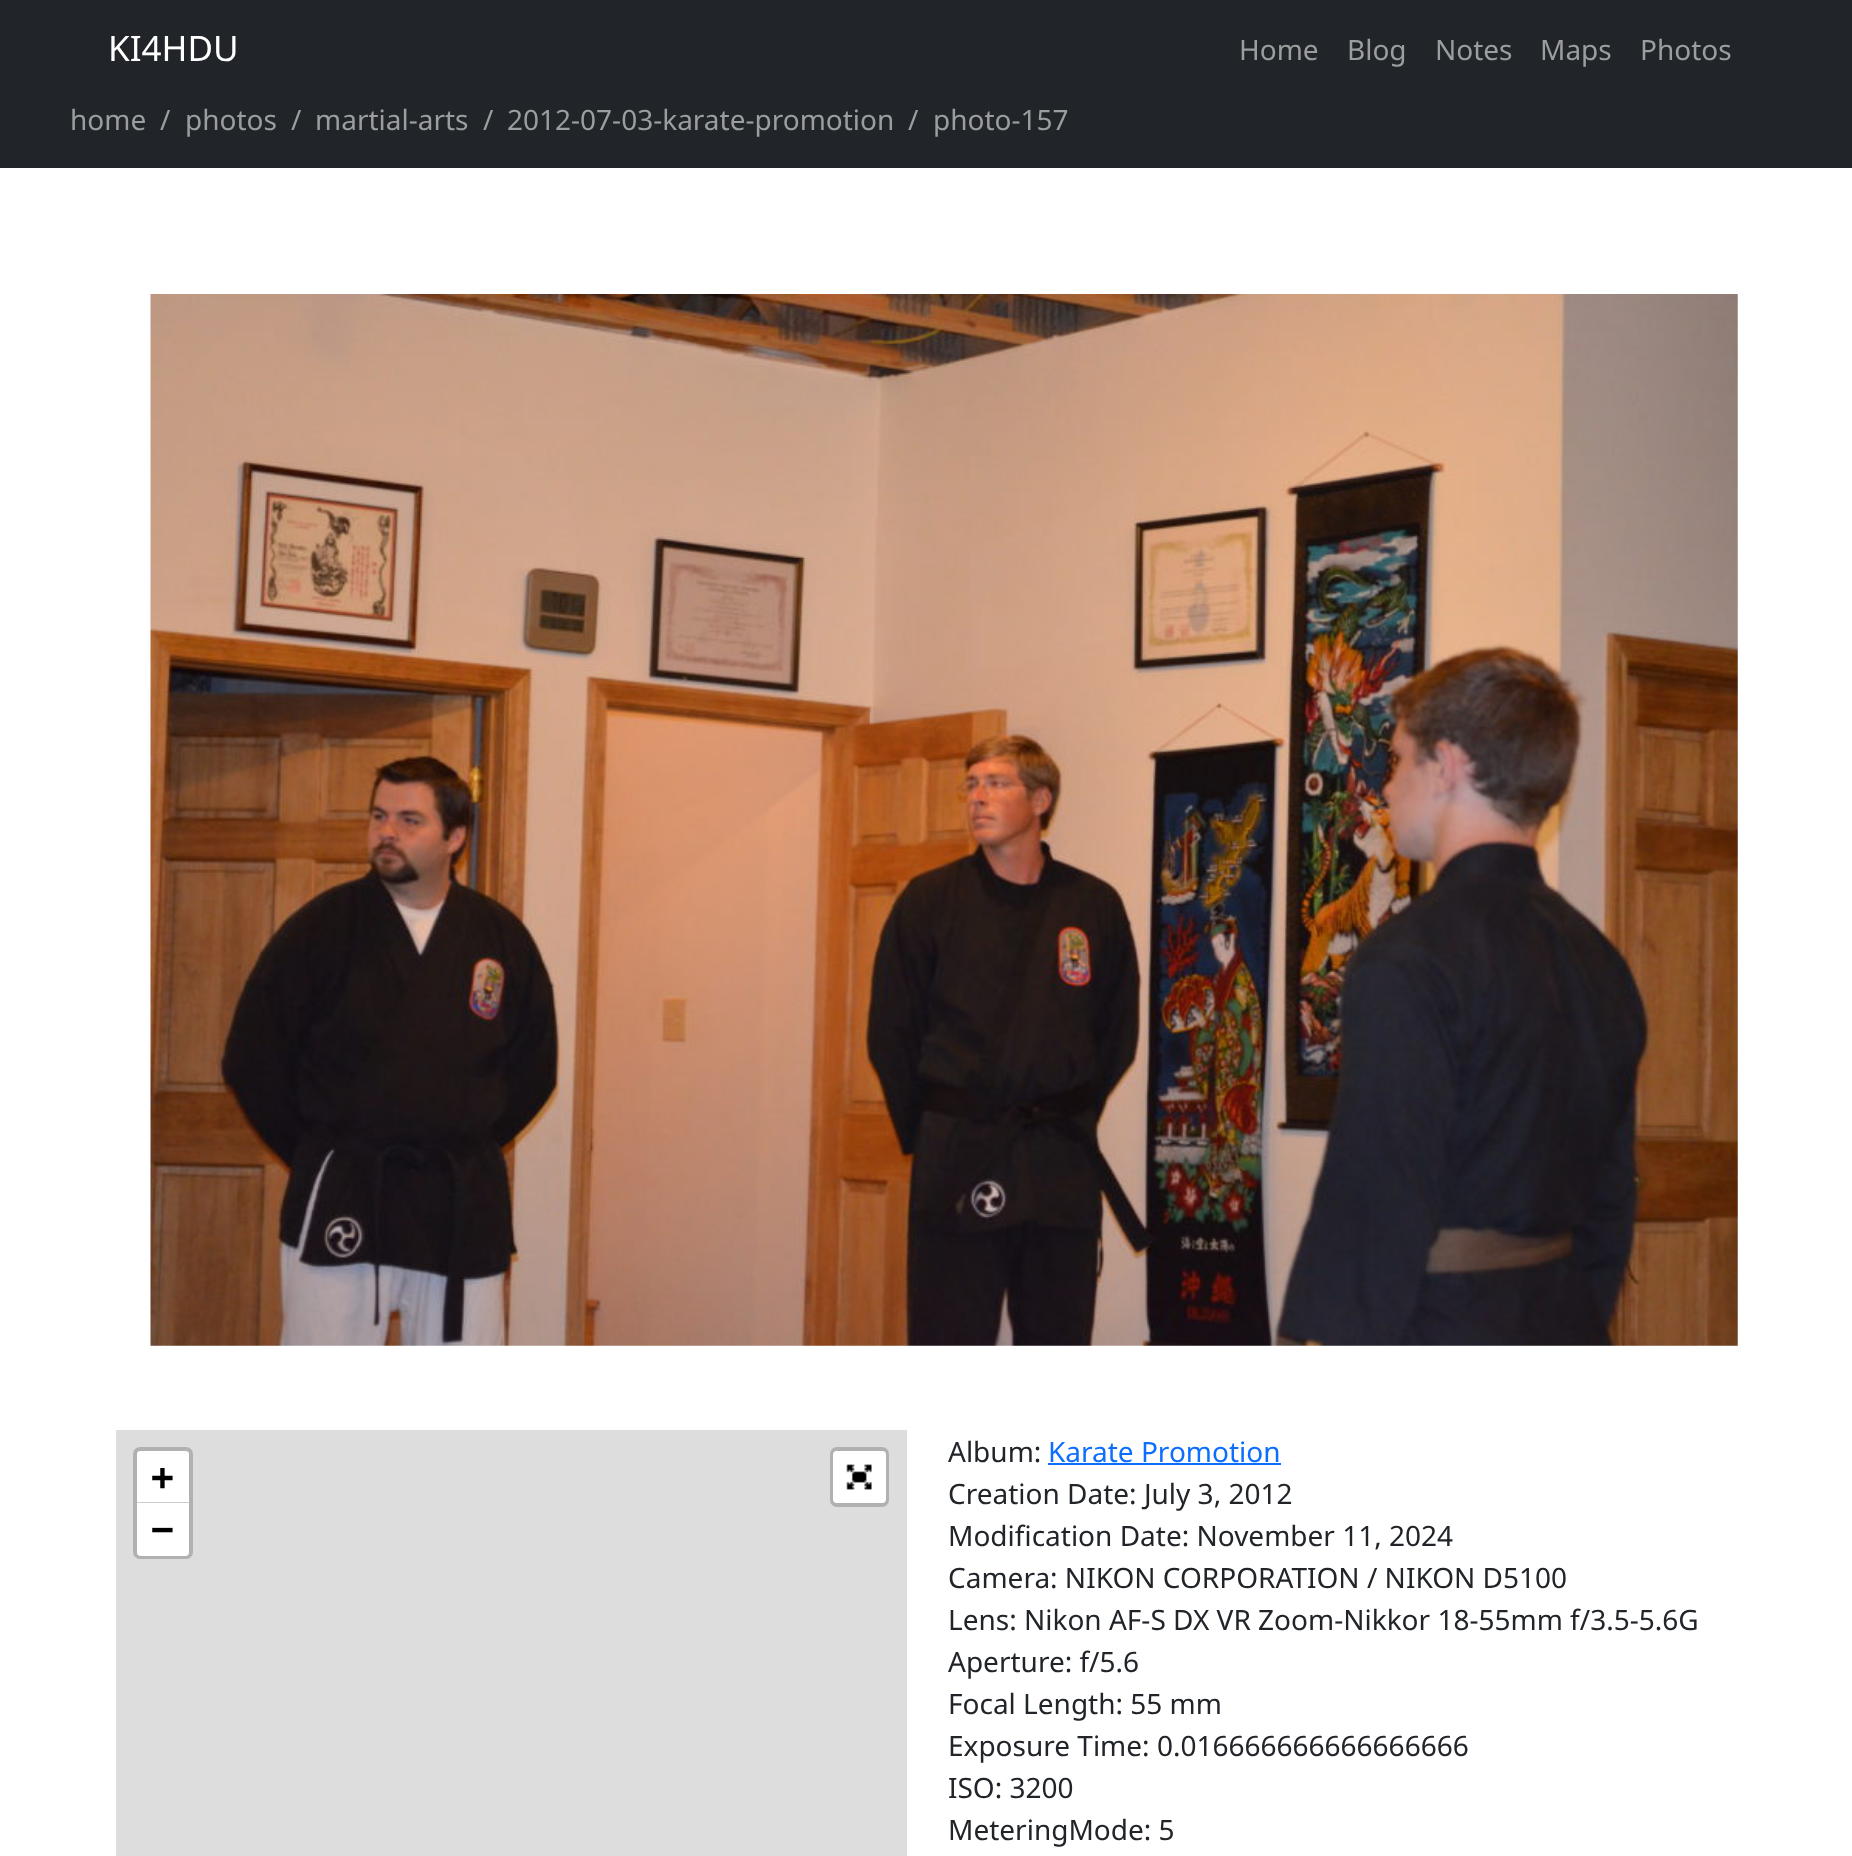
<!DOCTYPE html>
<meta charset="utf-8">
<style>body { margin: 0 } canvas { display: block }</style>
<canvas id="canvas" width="1852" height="1856"></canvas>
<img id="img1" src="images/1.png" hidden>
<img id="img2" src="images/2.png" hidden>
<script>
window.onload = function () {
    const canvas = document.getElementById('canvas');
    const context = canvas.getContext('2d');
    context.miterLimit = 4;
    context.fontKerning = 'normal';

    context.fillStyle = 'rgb(255, 255, 255)';
    context.fillRect(0, 0, 1852, 1856);
    context.fillStyle = 'rgb(33, 37, 41)';
    context.fillRect(0, 0, 1852, 168);
    context.drawImage(document.getElementById('img1'), 150, 294, 1588, 1052);
    context.fillStyle = 'rgb(221, 221, 221)';
    context.fillRect(116, 1430, 791, 426);
    context.beginPath();
    context.roundRect(135, 1449, 56, 108, 5);
    context.strokeStyle = 'rgb(177, 177, 177)';
    context.lineWidth = 4;
    context.stroke();
    context.fillStyle = 'rgb(255, 255, 255)';
    context.beginPath();
    context.roundRect(137, 1451, 52, 52, [4, 4, 0, 0]);
    context.fill();
    context.fillStyle = 'rgb(204, 204, 204)';
    context.fillRect(137, 1502, 52, 1);
    context.fillStyle = 'rgb(255, 255, 255)';
    context.beginPath();
    context.roundRect(137, 1503, 52, 53, [0, 0, 4, 4]);
    context.fill();
    context.beginPath();
    context.roundRect(832, 1449, 55, 56, 5);
    context.stroke();
    context.beginPath();
    context.roundRect(833, 1451, 53, 52, 4);
    context.fill();
    context.drawImage(document.getElementById('img2'), 846, 1464, 26, 26);
    context.fillStyle = 'rgb(13, 110, 253)';
    context.fillRect(1048, 1463, 233, 2);
    context.font = '35px Noto Sans';
    context.fillStyle = 'rgb(255, 255, 255)';
    context.fillText('KI4HDU', 108, 61);
    context.font = '28px Noto Sans';
    context.fillStyle = 'rgb(155, 157, 159)';
    context.fillText('Home', 1239, 60);
    context.fillText('Blog', 1347, 60);
    context.fillText('Notes', 1435, 60);
    context.fillText('Maps', 1540, 60);
    context.fillText('Photos', 1640, 60);
    context.fillText('home', 70, 130);
    context.fillText('/', 160, 130);
    context.fillText('photos', 185, 130);
    context.fillText('/', 291, 130);
    context.fillText('martial-arts', 315, 130);
    context.fillText('/', 483, 130);
    context.fillText('2012-07-03-karate-promotion', 507, 130);
    context.fillText('/', 908, 130);
    context.fillText('photo-157', 933, 130);
    context.font = 'bold 38px DejaVu Sans Mono';
    context.fillStyle = 'rgb(0, 0, 0)';
    context.fillText('+', 151, 1490);
    context.fillText('−', 151, 1542);
    context.font = '28px Noto Sans';
    context.fillStyle = 'rgb(33, 37, 41)';
    context.fillText('Album:', 948, 1462);
    context.fillStyle = 'rgb(13, 110, 253)';
    context.fillText('Karate Promotion', 1048, 1462);
    context.fillStyle = 'rgb(33, 37, 41)';
    context.fillText('Creation Date: July 3, 2012', 948, 1504);
    context.fillText('Modification Date: November 11, 2024', 948, 1546);
    context.fillText('Camera: NIKON CORPORATION / NIKON D5100', 948, 1588);
    context.fillText('Lens: Nikon AF-S DX VR Zoom-Nikkor 18-55mm f/3.5-5.6G', 948, 1630);
    context.fillText('Aperture: f/5.6', 948, 1672);
    context.fillText('Focal Length: 55 mm', 948, 1714);
    context.fillText('Exposure Time: 0.016666666666666666', 948, 1756);
    context.fillText('ISO: 3200', 948, 1798);
    context.fillText('MeteringMode: 5', 948, 1840);
};
</script>
